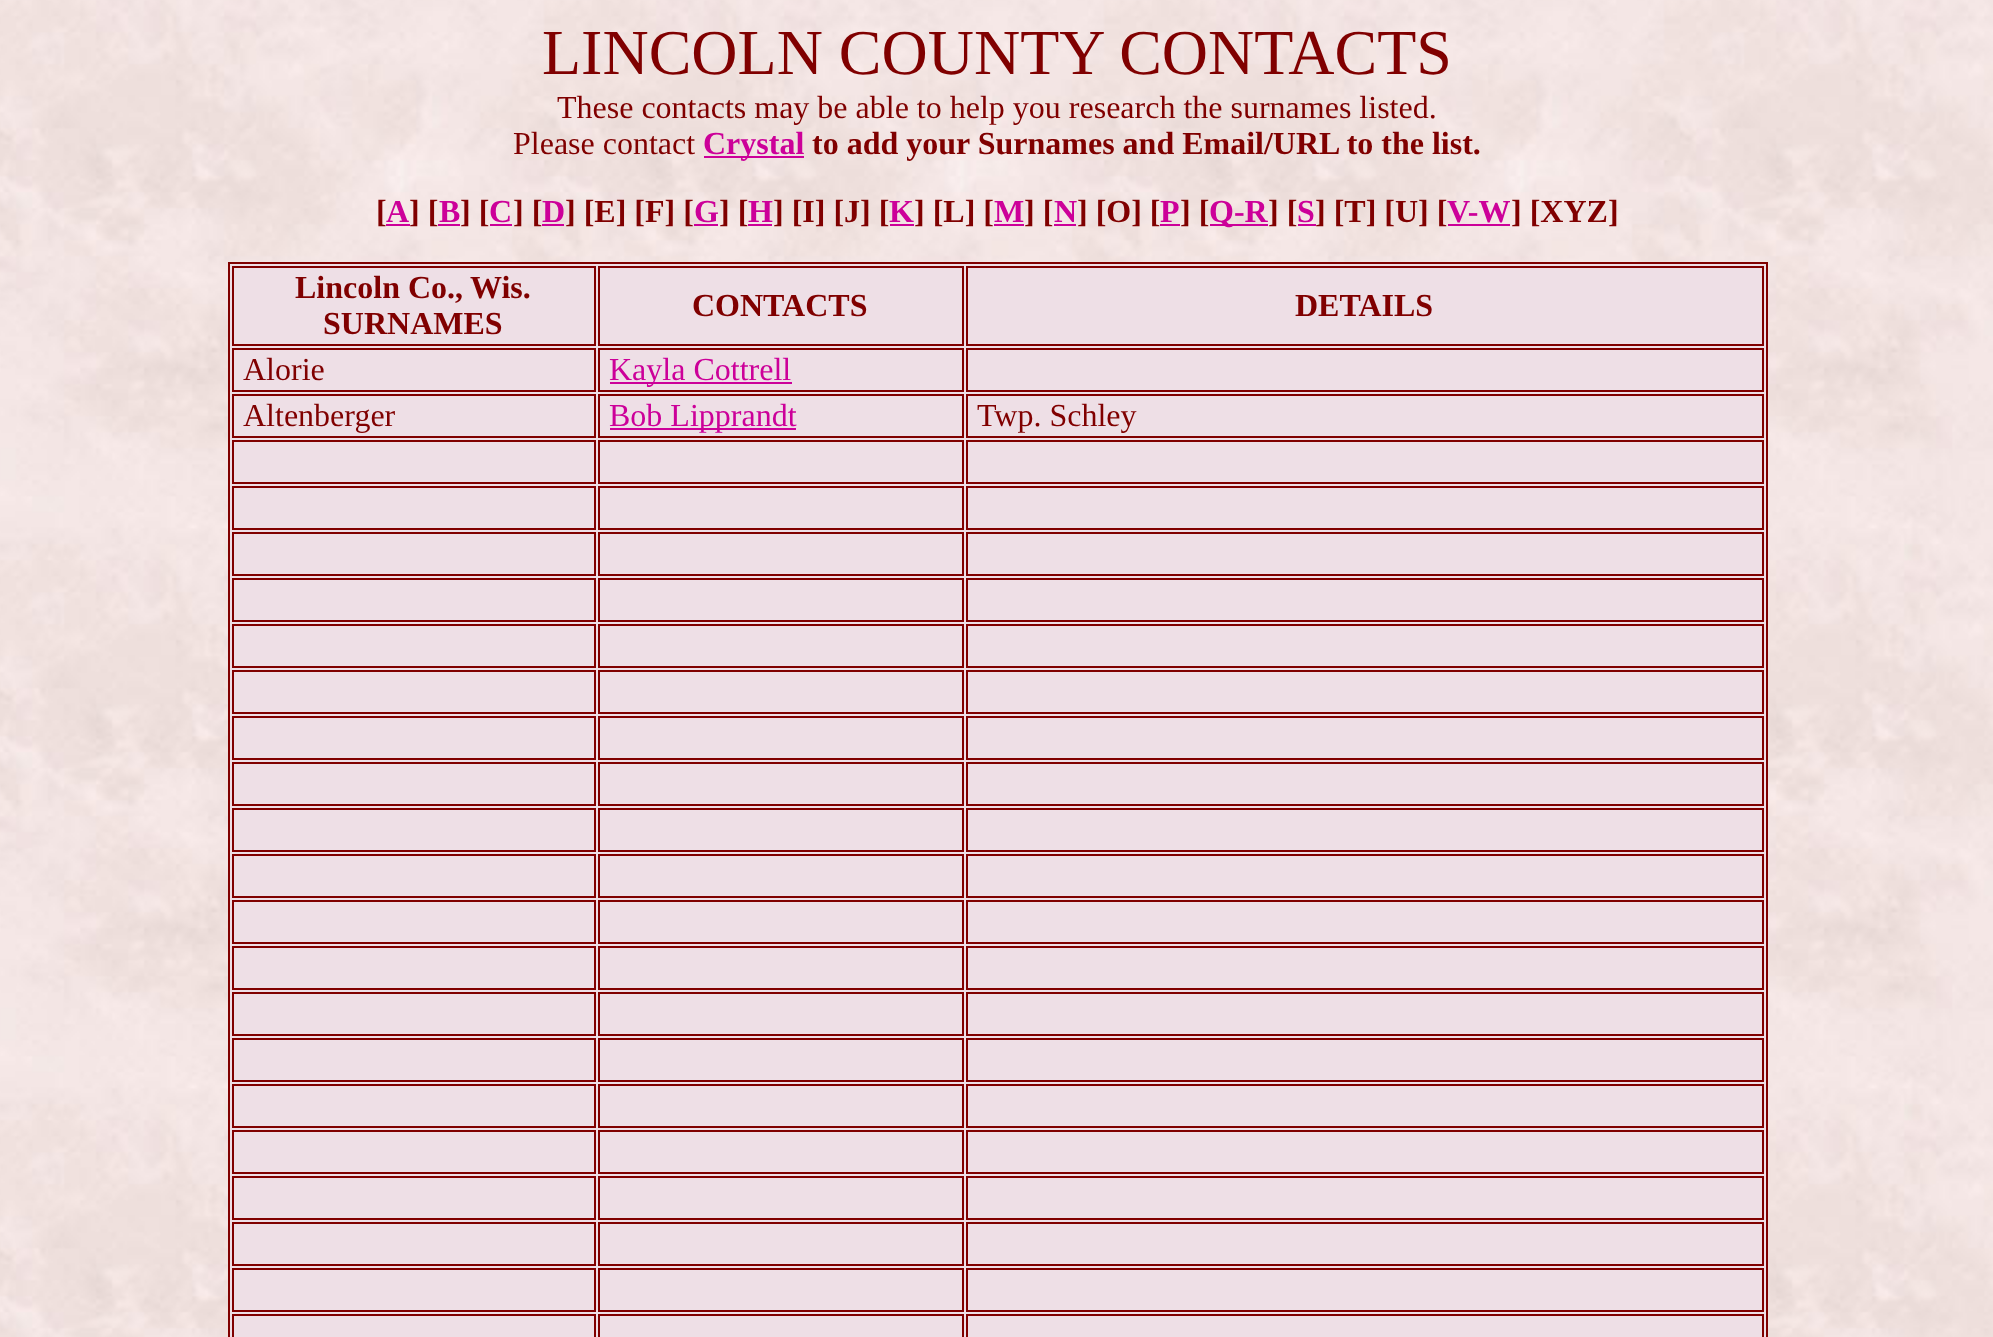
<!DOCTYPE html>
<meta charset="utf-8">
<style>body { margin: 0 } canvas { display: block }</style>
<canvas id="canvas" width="1993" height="1337"></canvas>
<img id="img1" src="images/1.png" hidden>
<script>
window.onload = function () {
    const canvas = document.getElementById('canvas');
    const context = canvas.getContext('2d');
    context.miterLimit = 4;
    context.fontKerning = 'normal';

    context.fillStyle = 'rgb(255, 255, 255)';
    context.fillRect(0, 0, 1993, 1337);
    context.drawImage(document.getElementById('img1'), 0, 0, 1993, 1337);
    context.fillStyle = 'rgb(204, 0, 153)';
    context.fillRect(704, 156, 100, 2);
    context.fillRect(386, 224, 24, 2);
    context.fillRect(438, 224, 22, 2);
    context.fillRect(490, 224, 22, 2);
    context.fillRect(542, 224, 22, 2);
    context.fillRect(694, 224, 24, 2);
    context.fillRect(748, 224, 24, 2);
    context.fillRect(890, 224, 24, 2);
    context.fillRect(994, 224, 30, 2);
    context.fillRect(1054, 224, 22, 2);
    context.fillRect(1160, 224, 20, 2);
    context.fillRect(1210, 224, 58, 2);
    context.fillRect(1298, 224, 18, 2);
    context.fillRect(1448, 224, 62, 2);
    context.fillStyle = 'rgb(238, 223, 230)';
    context.beginPath();
    context.rect(229, 263, 1538, 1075);
    context.fill();
    context.strokeStyle = 'rgb(128, 0, 0)';
    context.lineWidth = 2;
    context.stroke();
    context.strokeRect(233, 267, 362, 78);
    context.strokeRect(599, 267, 364, 78);
    context.strokeRect(967, 267, 796, 78);
    context.strokeRect(233, 349, 362, 42);
    context.strokeRect(599, 349, 364, 42);
    context.fillStyle = 'rgb(204, 0, 153)';
    context.fillRect(610, 382, 182, 2);
    context.strokeRect(967, 349, 796, 42);
    context.strokeRect(233, 395, 362, 42);
    context.strokeRect(599, 395, 364, 42);
    context.fillRect(610, 428, 186, 2);
    context.strokeRect(967, 395, 796, 42);
    context.strokeRect(233, 441, 362, 42);
    context.strokeRect(599, 441, 364, 42);
    context.strokeRect(967, 441, 796, 42);
    context.strokeRect(233, 487, 362, 42);
    context.strokeRect(599, 487, 364, 42);
    context.strokeRect(967, 487, 796, 42);
    context.strokeRect(233, 533, 362, 42);
    context.strokeRect(599, 533, 364, 42);
    context.strokeRect(967, 533, 796, 42);
    context.strokeRect(233, 579, 362, 42);
    context.strokeRect(599, 579, 364, 42);
    context.strokeRect(967, 579, 796, 42);
    context.strokeRect(233, 625, 362, 42);
    context.strokeRect(599, 625, 364, 42);
    context.strokeRect(967, 625, 796, 42);
    context.strokeRect(233, 671, 362, 42);
    context.strokeRect(599, 671, 364, 42);
    context.strokeRect(967, 671, 796, 42);
    context.strokeRect(233, 717, 362, 42);
    context.strokeRect(599, 717, 364, 42);
    context.strokeRect(967, 717, 796, 42);
    context.strokeRect(233, 763, 362, 42);
    context.strokeRect(599, 763, 364, 42);
    context.strokeRect(967, 763, 796, 42);
    context.strokeRect(233, 809, 362, 42);
    context.strokeRect(599, 809, 364, 42);
    context.strokeRect(967, 809, 796, 42);
    context.strokeRect(233, 855, 362, 42);
    context.strokeRect(599, 855, 364, 42);
    context.strokeRect(967, 855, 796, 42);
    context.strokeRect(233, 901, 362, 42);
    context.strokeRect(599, 901, 364, 42);
    context.strokeRect(967, 901, 796, 42);
    context.strokeRect(233, 947, 362, 42);
    context.strokeRect(599, 947, 364, 42);
    context.strokeRect(967, 947, 796, 42);
    context.strokeRect(233, 993, 362, 42);
    context.strokeRect(599, 993, 364, 42);
    context.strokeRect(967, 993, 796, 42);
    context.strokeRect(233, 1039, 362, 42);
    context.strokeRect(599, 1039, 364, 42);
    context.strokeRect(967, 1039, 796, 42);
    context.strokeRect(233, 1085, 362, 42);
    context.strokeRect(599, 1085, 364, 42);
    context.strokeRect(967, 1085, 796, 42);
    context.strokeRect(233, 1131, 362, 42);
    context.strokeRect(599, 1131, 364, 42);
    context.strokeRect(967, 1131, 796, 42);
    context.strokeRect(233, 1177, 362, 42);
    context.strokeRect(599, 1177, 364, 42);
    context.strokeRect(967, 1177, 796, 42);
    context.strokeRect(233, 1223, 362, 42);
    context.strokeRect(599, 1223, 364, 42);
    context.strokeRect(967, 1223, 796, 42);
    context.strokeRect(233, 1269, 362, 42);
    context.strokeRect(599, 1269, 364, 42);
    context.strokeRect(967, 1269, 796, 42);
    context.strokeRect(233, 1315, 362, 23);
    context.strokeRect(599, 1315, 364, 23);
    context.strokeRect(967, 1315, 796, 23);
    context.font = '64px Liberation Serif';
    context.fillStyle = 'rgb(128, 0, 0)';
    context.fillText('LINCOLN COUNTY CONTACTS', 542, 74);
    context.font = '32px Liberation Serif';
    context.fillText('These contacts may be able to help you research the surnames listed.', 557, 118);
    context.fillText('Please contact', 513, 154);
    context.font = 'bold 32px Liberation Serif';
    context.fillStyle = 'rgb(204, 0, 153)';
    context.fillText('Crystal', 703, 154);
    context.fillStyle = 'rgb(128, 0, 0)';
    context.fillText('to add your Surnames and Email/URL to the list.', 812, 154);
    context.fillText('[', 376, 222);
    context.fillStyle = 'rgb(204, 0, 153)';
    context.fillText('A', 386, 222);
    context.fillStyle = 'rgb(128, 0, 0)';
    context.fillText('] [', 409, 222);
    context.fillStyle = 'rgb(204, 0, 153)';
    context.fillText('B', 439, 222);
    context.fillStyle = 'rgb(128, 0, 0)';
    context.fillText('] [', 460, 222);
    context.fillStyle = 'rgb(204, 0, 153)';
    context.fillText('C', 489, 222);
    context.fillStyle = 'rgb(128, 0, 0)';
    context.fillText('] [', 513, 222);
    context.fillStyle = 'rgb(204, 0, 153)';
    context.fillText('D', 542, 222);
    context.fillStyle = 'rgb(128, 0, 0)';
    context.fillText('] [E] [F] [', 565, 222);
    context.fillStyle = 'rgb(204, 0, 153)';
    context.fillText('G', 694, 222);
    context.fillStyle = 'rgb(128, 0, 0)';
    context.fillText('] [', 719, 222);
    context.fillStyle = 'rgb(204, 0, 153)';
    context.fillText('H', 748, 222);
    context.fillStyle = 'rgb(128, 0, 0)';
    context.fillText('] [I] [J] [', 773, 222);
    context.fillStyle = 'rgb(204, 0, 153)';
    context.fillText('K', 889, 222);
    context.fillStyle = 'rgb(128, 0, 0)';
    context.fillText('] [L] [', 914, 222);
    context.fillStyle = 'rgb(204, 0, 153)';
    context.fillText('M', 994, 222);
    context.fillStyle = 'rgb(128, 0, 0)';
    context.fillText('] [', 1024, 222);
    context.fillStyle = 'rgb(204, 0, 153)';
    context.fillText('N', 1054, 222);
    context.fillStyle = 'rgb(128, 0, 0)';
    context.fillText('] [O] [', 1077, 222);
    context.fillStyle = 'rgb(204, 0, 153)';
    context.fillText('P', 1160, 222);
    context.fillStyle = 'rgb(128, 0, 0)';
    context.fillText('] [', 1180, 222);
    context.fillStyle = 'rgb(204, 0, 153)';
    context.fillText('Q-R', 1209, 222);
    context.fillStyle = 'rgb(128, 0, 0)';
    context.fillText('] [', 1268, 222);
    context.fillStyle = 'rgb(204, 0, 153)';
    context.fillText('S', 1297, 222);
    context.fillStyle = 'rgb(128, 0, 0)';
    context.fillText('] [T] [U] [', 1315, 222);
    context.fillStyle = 'rgb(204, 0, 153)';
    context.fillText('V-W', 1447, 222);
    context.fillStyle = 'rgb(128, 0, 0)';
    context.fillText('] [XYZ]', 1511, 222);
    context.fillText('Lincoln Co.,', 295, 298);
    context.fillText('Wis.', 470, 298);
    context.fillText('SURNAMES', 323, 334);
    context.fillText('CONTACTS', 692, 316);
    context.fillText('DETAILS', 1295, 316);
    context.font = '32px Liberation Serif';
    context.fillText('Alorie', 243, 380);
    context.fillStyle = 'rgb(204, 0, 153)';
    context.fillText('Kayla Cottrell', 609, 380);
    context.fillStyle = 'rgb(128, 0, 0)';
    context.fillText('Altenberger', 243, 426);
    context.fillStyle = 'rgb(204, 0, 153)';
    context.fillText('Bob Lipprandt', 609, 426);
    context.fillStyle = 'rgb(128, 0, 0)';
    context.fillText('Twp. Schley', 977, 426);
};
</script>
